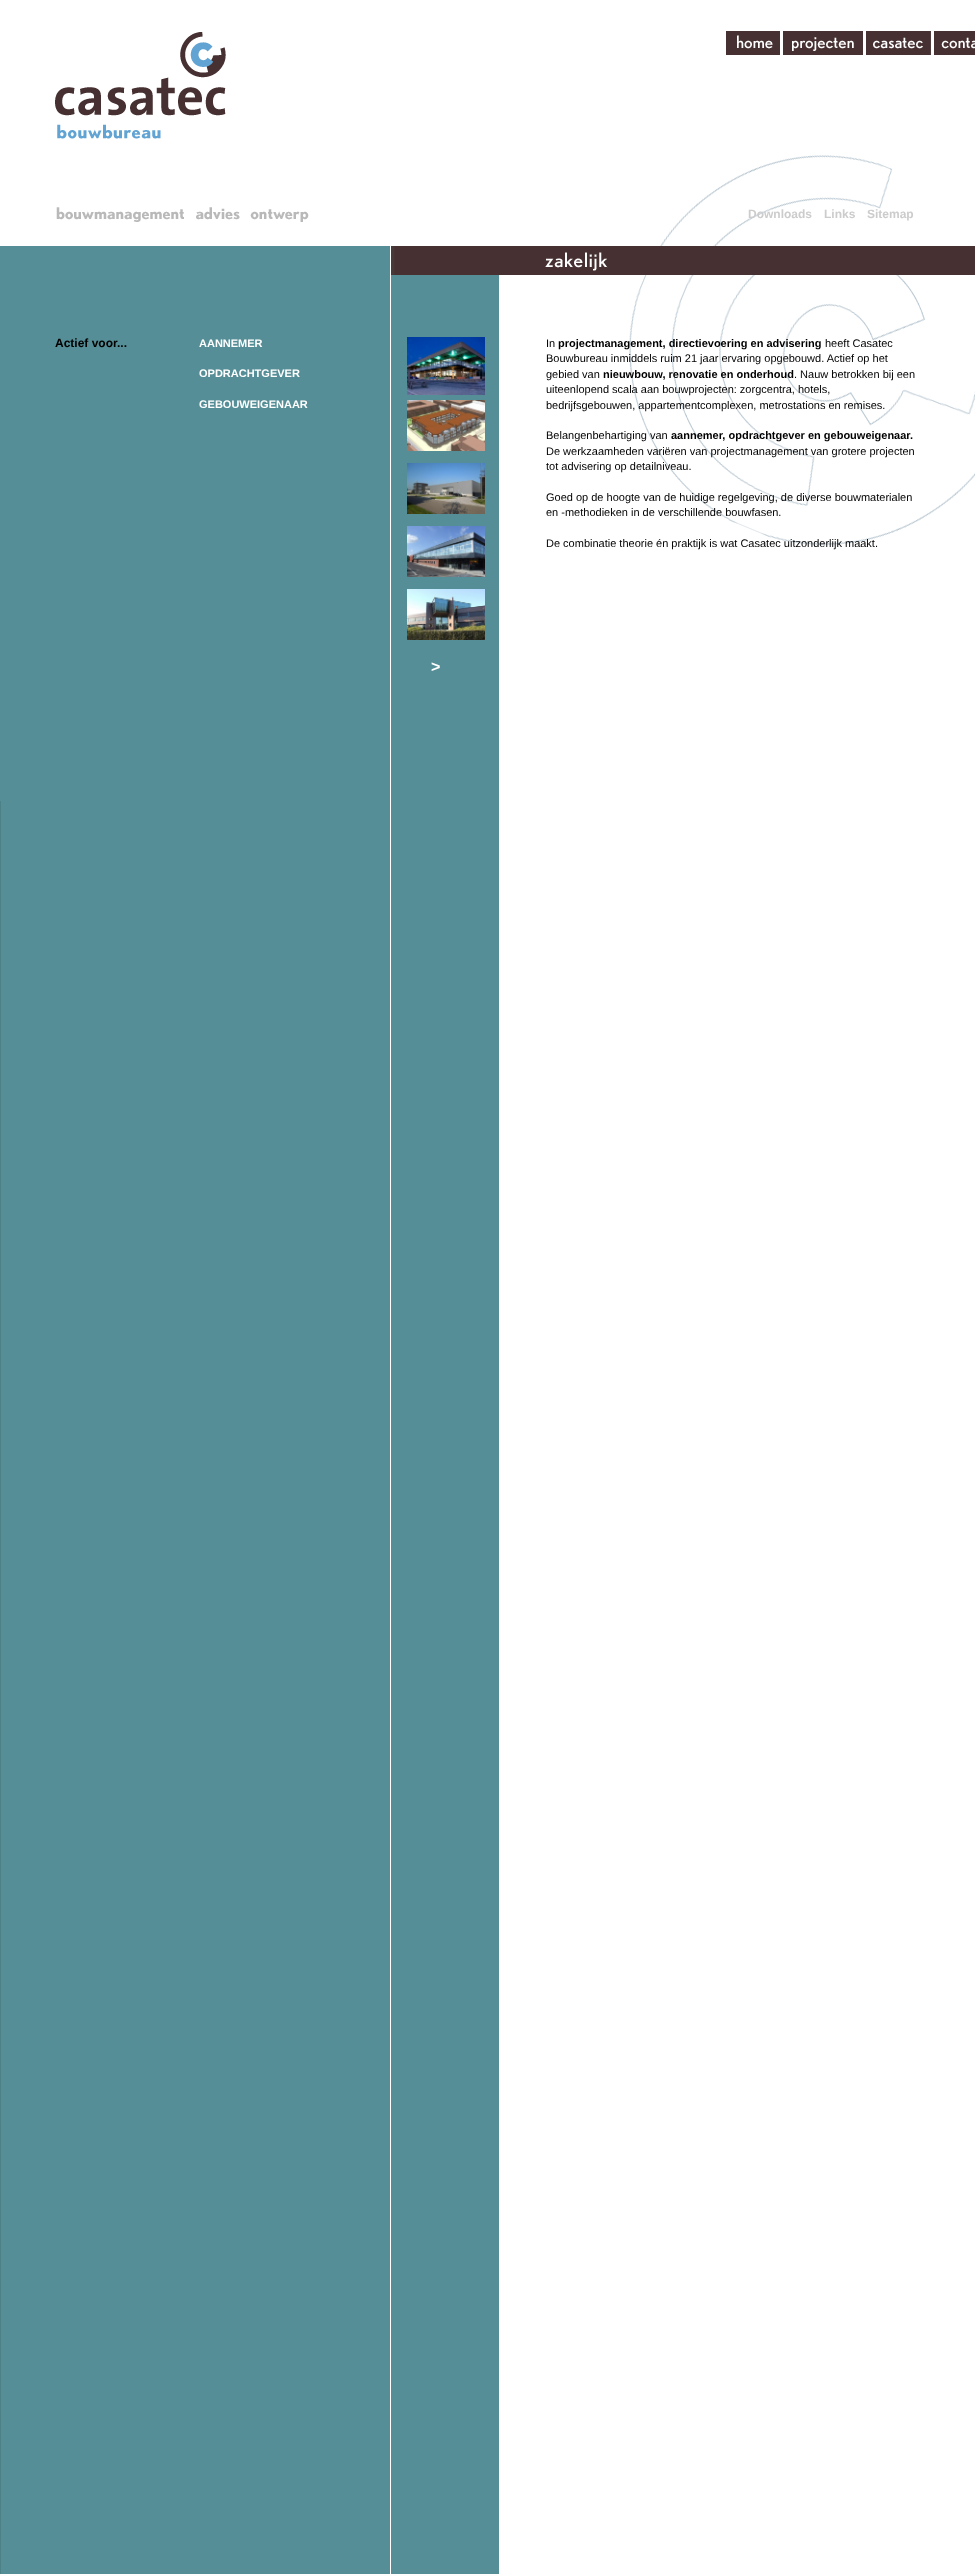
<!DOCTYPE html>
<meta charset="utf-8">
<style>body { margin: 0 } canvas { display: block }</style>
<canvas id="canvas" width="975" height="2574"></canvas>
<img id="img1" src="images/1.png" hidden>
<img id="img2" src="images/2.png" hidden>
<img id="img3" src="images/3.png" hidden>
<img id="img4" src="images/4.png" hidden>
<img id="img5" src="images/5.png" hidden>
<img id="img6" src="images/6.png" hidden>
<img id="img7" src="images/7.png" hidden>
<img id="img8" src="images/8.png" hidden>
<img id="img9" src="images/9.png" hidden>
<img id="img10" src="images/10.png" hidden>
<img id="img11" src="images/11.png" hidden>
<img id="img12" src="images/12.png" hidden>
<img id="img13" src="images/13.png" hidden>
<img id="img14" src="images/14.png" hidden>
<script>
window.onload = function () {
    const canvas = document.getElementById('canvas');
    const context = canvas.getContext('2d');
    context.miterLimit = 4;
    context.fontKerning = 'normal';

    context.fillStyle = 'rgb(255, 255, 255)';
    context.fillRect(0, 0, 975, 2574);
    context.drawImage(document.getElementById('img1'), 0, 801, 499, 1773);
    context.drawImage(document.getElementById('img2'), 0, 545, 975, 256);
    context.drawImage(document.getElementById('img3'), 0, 1, 975, 544);
    context.drawImage(document.getElementById('img4'), 55, 32, 254, 190);
    context.drawImage(document.getElementById('img5'), 726, 31, 54, 24);
    context.drawImage(document.getElementById('img6'), 783, 31, 80, 24);
    context.drawImage(document.getElementById('img7'), 866, 31, 65, 24);
    context.drawImage(document.getElementById('img8'), 934, 31, 41, 24);
    context.drawImage(document.getElementById('img9'), 545, 252, 63, 19);
    context.drawImage(document.getElementById('img10'), 407, 337, 78, 58);
    context.drawImage(document.getElementById('img11'), 407, 400, 78, 51);
    context.drawImage(document.getElementById('img12'), 407, 463, 78, 51);
    context.drawImage(document.getElementById('img13'), 407, 526, 78, 51);
    context.drawImage(document.getElementById('img14'), 407, 589, 78, 51);
    context.fillStyle = 'rgba(0, 0, 0, 0.09)';
    context.fillRect(0, 801, 1, 1773);
    context.font = 'bold 12px Liberation Sans';
    context.fillStyle = 'rgb(204, 204, 204)';
    context.fillText('Downloads', 748, 218);
    context.fillText('Links', 824, 218);
    context.fillText('Sitemap', 867, 218);
    context.fillStyle = 'rgb(0, 0, 0)';
    context.fillText('Actief voor...', 55, 347);
    context.font = 'bold 11px Liberation Sans';
    context.fillStyle = 'rgb(255, 255, 255)';
    context.fillText('AANNEMER', 199, 347);
    context.fillText('OPDRACHTGEVER', 199, 377);
    context.fillText('GEBOUWEIGENAAR', 199, 408);
    context.font = '11px Liberation Sans';
    context.fillStyle = 'rgb(0, 0, 0)';
    context.fillText('In', 546, 347);
    context.font = 'bold 11px Liberation Sans';
    context.fillText('projectmanagement, directievoering en advisering', 558, 347);
    context.font = '11px Liberation Sans';
    context.fillText('heeft Casatec', 825, 347);
    context.fillText('Bouwbureau inmiddels ruim 21 jaar ervaring opgebouwd. Actief op het', 546, 362);
    context.fillText('gebied van', 546, 378);
    context.font = 'bold 11px Liberation Sans';
    context.fillText('nieuwbouw, renovatie en onderhoud', 603, 378);
    context.font = '11px Liberation Sans';
    context.fillText('. Nauw betrokken bij een', 794, 378);
    context.fillText('uiteenlopend scala aan bouwprojecten: zorgcentra, hotels,', 546, 393);
    context.fillText('bedrijfsgebouwen, appartementcomplexen, metrostations en remises.', 546, 409);
    context.fillText('Belangenbehartiging van', 546, 439);
    context.font = 'bold 11px Liberation Sans';
    context.fillText('aannemer, opdrachtgever en gebouweigenaar.', 671, 439);
    context.font = '11px Liberation Sans';
    context.fillText('De werkzaamheden variëren van projectmanagement van grotere projecten', 546, 455);
    context.fillText('tot advisering op detailniveau.', 546, 470);
    context.fillText('Goed op de hoogte van de huidige regelgeving, de diverse bouwmaterialen', 546, 501);
    context.fillText('en -methodieken in de verschillende bouwfasen.', 546, 516);
    context.fillText('De combinatie theorie én praktijk is wat Casatec uitzonderlijk maakt.', 546, 547);
    context.font = 'bold 16px Liberation Sans';
    context.fillStyle = 'rgb(255, 255, 255)';
    context.fillText('>', 431, 672);
};
</script>
